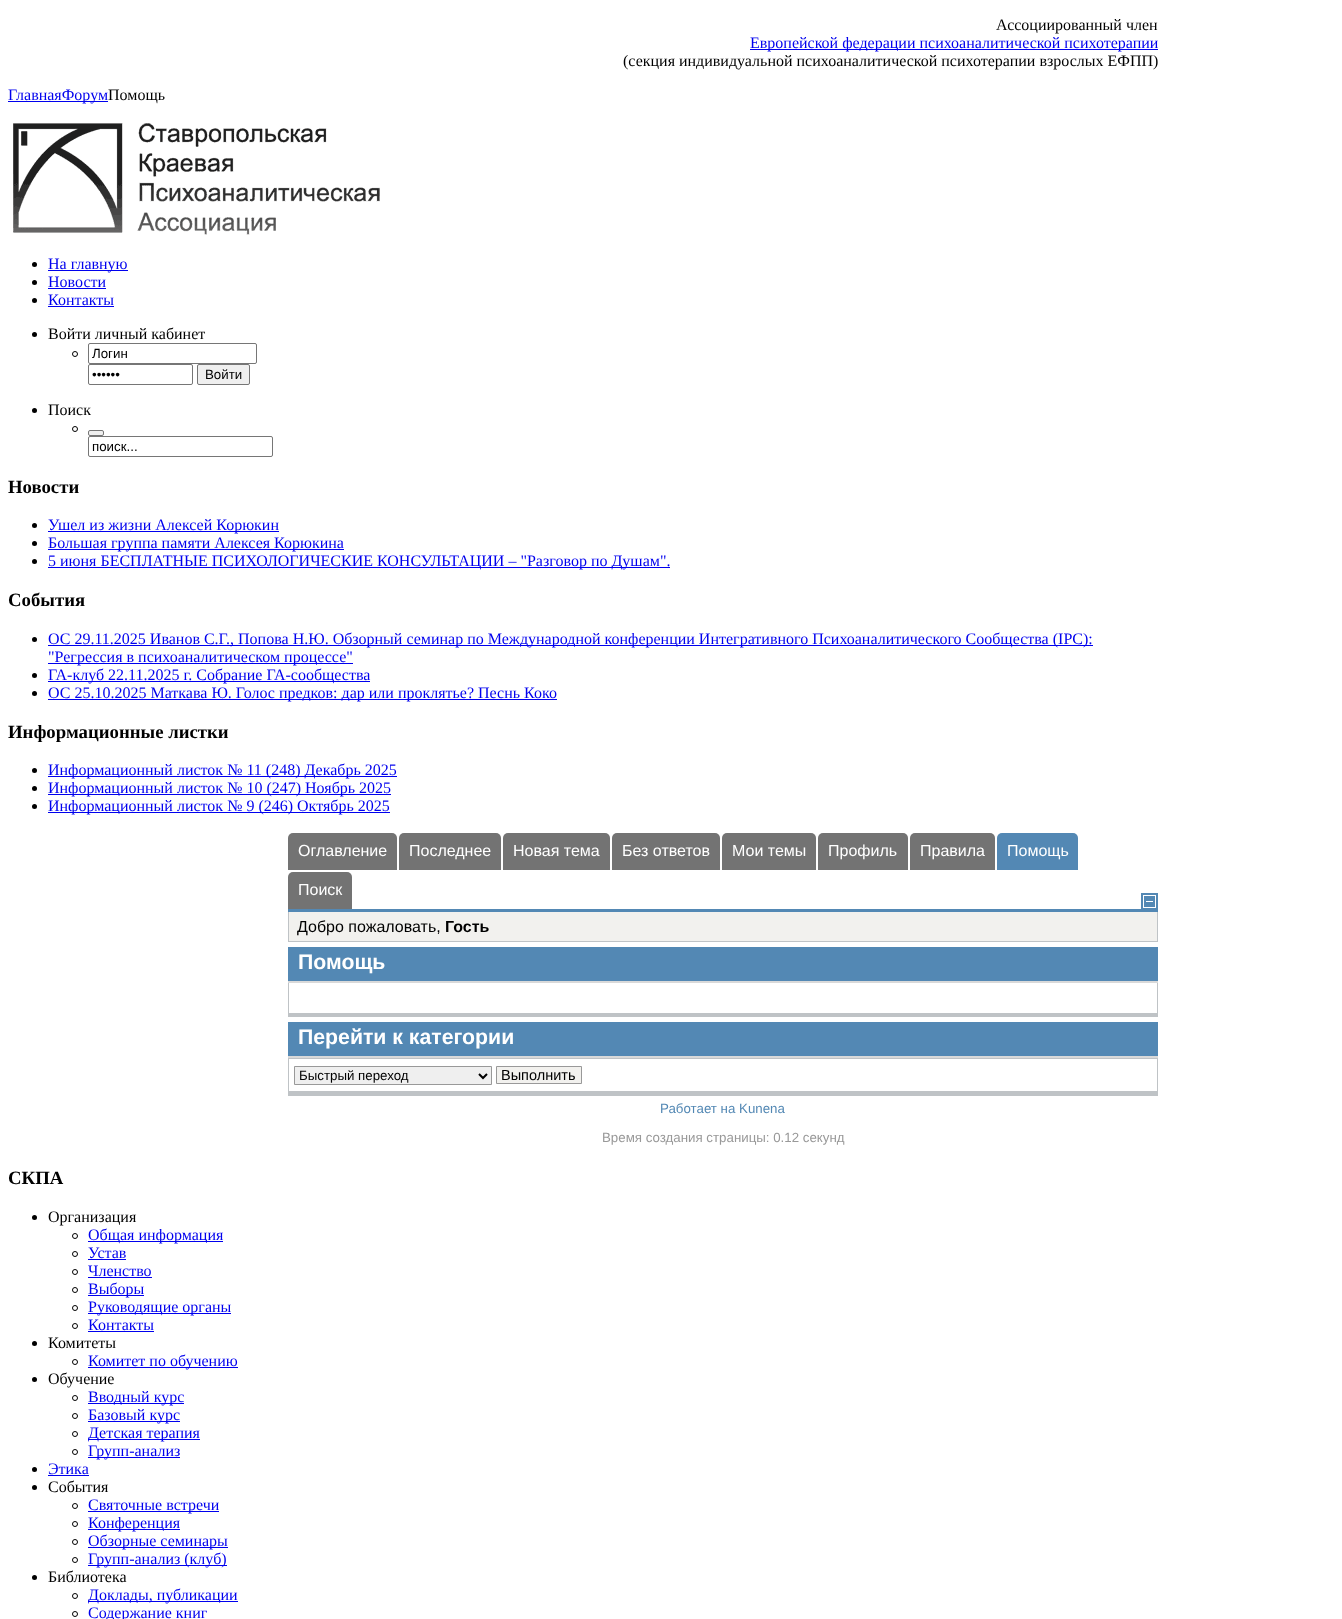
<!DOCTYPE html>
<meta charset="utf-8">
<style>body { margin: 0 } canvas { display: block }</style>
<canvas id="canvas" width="1342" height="1619"></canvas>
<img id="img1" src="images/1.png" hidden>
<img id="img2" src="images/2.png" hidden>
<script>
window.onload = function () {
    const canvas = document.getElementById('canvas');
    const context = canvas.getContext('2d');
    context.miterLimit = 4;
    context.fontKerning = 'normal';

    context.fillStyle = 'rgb(255, 255, 255)';
    context.fillRect(0, 0, 1342, 1619);
    context.fillStyle = 'rgb(0, 0, 238)';
    context.fillRect(750, 49, 408, 1);
    context.fillRect(8, 101, 100, 1);
    context.drawImage(document.getElementById('img1'), 13, 123, 367, 112);
    context.fillStyle = 'rgb(0, 0, 0)';
    context.beginPath();
    context.arc(34.5, 264.5, 2.5, 0, 2 * Math.PI);
    context.fill();
    context.fillStyle = 'rgb(0, 0, 238)';
    context.fillRect(48, 270, 80, 1);
    context.fillStyle = 'rgb(0, 0, 0)';
    context.beginPath();
    context.arc(34.5, 282.5, 2.5, 0, 2 * Math.PI);
    context.fill();
    context.fillStyle = 'rgb(0, 0, 238)';
    context.fillRect(48, 288, 58, 1);
    context.fillStyle = 'rgb(0, 0, 0)';
    context.beginPath();
    context.arc(34.5, 300.5, 2.5, 0, 2 * Math.PI);
    context.fill();
    context.fillStyle = 'rgb(0, 0, 238)';
    context.fillRect(48, 306, 66, 1);
    context.fillStyle = 'rgb(0, 0, 0)';
    context.beginPath();
    context.arc(34.5, 334.5, 2.5, 0, 2 * Math.PI);
    context.fill();
    context.beginPath();
    context.arc(75, 354, 2.5, 0, 2 * Math.PI);
    context.strokeStyle = 'rgb(0, 0, 0)';
    context.stroke();
    context.beginPath();
    context.roundRect(88.5, 343.5, 168, 20, 1.5);
    context.strokeStyle = 'rgb(118, 118, 118)';
    context.stroke();
    context.beginPath();
    context.roundRect(88.5, 364.5, 104, 20, 1.5);
    context.stroke();
    context.fillStyle = 'rgb(239, 239, 239)';
    context.beginPath();
    context.roundRect(197.5, 364.5, 52, 20, 1.5);
    context.fill();
    context.stroke();
    context.fillStyle = 'rgb(0, 0, 0)';
    context.beginPath();
    context.arc(34.5, 410.5, 2.5, 0, 2 * Math.PI);
    context.fill();
    context.beginPath();
    context.arc(75, 429, 2.5, 0, 2 * Math.PI);
    context.strokeStyle = 'rgb(0, 0, 0)';
    context.stroke();
    context.fillStyle = 'rgb(239, 239, 239)';
    context.beginPath();
    context.roundRect(88.5, 430.5, 15, 5, 1.5);
    context.fill();
    context.strokeStyle = 'rgb(118, 118, 118)';
    context.stroke();
    context.beginPath();
    context.roundRect(88.5, 436.5, 184, 20, 1.5);
    context.stroke();
    context.fillStyle = 'rgb(0, 0, 0)';
    context.beginPath();
    context.arc(34.5, 525.5, 2.5, 0, 2 * Math.PI);
    context.fill();
    context.fillStyle = 'rgb(0, 0, 238)';
    context.fillRect(48, 531, 231, 1);
    context.fillStyle = 'rgb(0, 0, 0)';
    context.beginPath();
    context.arc(34.5, 543.5, 2.5, 0, 2 * Math.PI);
    context.fill();
    context.fillStyle = 'rgb(0, 0, 238)';
    context.fillRect(48, 549, 296, 1);
    context.fillStyle = 'rgb(0, 0, 0)';
    context.beginPath();
    context.arc(34.5, 561.5, 2.5, 0, 2 * Math.PI);
    context.fill();
    context.fillStyle = 'rgb(0, 0, 238)';
    context.fillRect(48, 567, 622, 1);
    context.fillStyle = 'rgb(0, 0, 0)';
    context.beginPath();
    context.arc(34.5, 639.5, 2.5, 0, 2 * Math.PI);
    context.fill();
    context.fillStyle = 'rgb(0, 0, 238)';
    context.fillRect(48, 645, 1045, 1);
    context.fillRect(48, 663, 305, 1);
    context.fillStyle = 'rgb(0, 0, 0)';
    context.beginPath();
    context.arc(34.5, 675.5, 2.5, 0, 2 * Math.PI);
    context.fill();
    context.fillStyle = 'rgb(0, 0, 238)';
    context.fillRect(48, 681, 322, 1);
    context.fillStyle = 'rgb(0, 0, 0)';
    context.beginPath();
    context.arc(34.5, 693.5, 2.5, 0, 2 * Math.PI);
    context.fill();
    context.fillStyle = 'rgb(0, 0, 238)';
    context.fillRect(48, 699, 509, 1);
    context.fillStyle = 'rgb(0, 0, 0)';
    context.beginPath();
    context.arc(34.5, 770.5, 2.5, 0, 2 * Math.PI);
    context.fill();
    context.fillStyle = 'rgb(0, 0, 238)';
    context.fillRect(48, 776, 349, 1);
    context.fillStyle = 'rgb(0, 0, 0)';
    context.beginPath();
    context.arc(34.5, 788.5, 2.5, 0, 2 * Math.PI);
    context.fill();
    context.fillStyle = 'rgb(0, 0, 238)';
    context.fillRect(48, 794, 343, 1);
    context.fillStyle = 'rgb(0, 0, 0)';
    context.beginPath();
    context.arc(34.5, 806.5, 2.5, 0, 2 * Math.PI);
    context.fill();
    context.fillStyle = 'rgb(0, 0, 238)';
    context.fillRect(48, 812, 342, 1);
    context.fillStyle = 'rgb(83, 136, 180)';
    context.fillRect(288, 909, 870, 3);
    context.fillStyle = 'rgb(115, 115, 115)';
    context.beginPath();
    context.roundRect(288, 833, 109, 37, [5, 5, 0, 0]);
    context.fill();
    context.beginPath();
    context.roundRect(399, 833, 102, 37, [5, 5, 0, 0]);
    context.fill();
    context.beginPath();
    context.roundRect(503, 833, 107, 37, [5, 5, 0, 0]);
    context.fill();
    context.beginPath();
    context.roundRect(612, 833, 108, 37, [5, 5, 0, 0]);
    context.fill();
    context.beginPath();
    context.roundRect(722, 833, 94, 37, [5, 5, 0, 0]);
    context.fill();
    context.beginPath();
    context.roundRect(818, 833, 90, 37, [5, 5, 0, 0]);
    context.fill();
    context.beginPath();
    context.roundRect(910, 833, 85, 37, [5, 5, 0, 0]);
    context.fill();
    context.fillStyle = 'rgb(83, 136, 180)';
    context.beginPath();
    context.roundRect(997, 833, 81, 37, [5, 5, 0, 0]);
    context.fill();
    context.fillStyle = 'rgb(115, 115, 115)';
    context.beginPath();
    context.roundRect(288, 872, 64, 37, [5, 5, 0, 0]);
    context.fill();
    context.fillStyle = 'rgb(83, 136, 180)';
    context.fillRect(1141, 893, 17, 16);
    context.drawImage(document.getElementById('img2'), 1143, 895, 13, 13);
    context.fillStyle = 'rgb(191, 195, 198)';
    context.fillRect(288, 941, 870, 1);
    context.fillRect(1157, 912, 1, 29);
    context.fillRect(288, 912, 1, 29);
    context.fillStyle = 'rgb(242, 241, 238)';
    context.fillRect(289, 912, 868, 29);
    context.fillStyle = 'rgb(191, 195, 198)';
    context.fillRect(288, 1013, 870, 4);
    context.fillStyle = 'rgb(83, 136, 180)';
    context.fillRect(288, 947, 870, 34);
    context.fillStyle = 'rgb(217, 217, 217)';
    context.fillRect(288, 981, 870, 2);
    context.fillStyle = 'rgb(191, 195, 198)';
    context.fillRect(1157, 983, 1, 30);
    context.fillRect(288, 983, 1, 30);
    context.fillRect(288, 1092, 870, 4);
    context.fillStyle = 'rgb(83, 136, 180)';
    context.fillRect(288, 1022, 870, 34);
    context.fillStyle = 'rgb(217, 217, 217)';
    context.fillRect(288, 1056, 870, 2);
    context.strokeStyle = 'rgb(191, 195, 198)';
    context.strokeRect(288.5, 1058.5, 869, 33);
    context.fillStyle = 'rgb(239, 239, 239)';
    context.beginPath();
    context.rect(294.5, 1066.5, 197, 18);
    context.fill();
    context.strokeStyle = 'rgb(153, 153, 153)';
    context.stroke();
    context.beginPath();
    context.moveTo(479, 1074);
    context.lineTo(483, 1078);
    context.lineTo(487, 1074);
    context.strokeStyle = 'rgb(0, 0, 0)';
    context.lineWidth = 2;
    context.stroke();
    context.fillStyle = 'rgb(242, 241, 238)';
    context.beginPath();
    context.rect(496.5, 1066.5, 85, 17);
    context.fill();
    context.strokeStyle = 'rgb(153, 153, 153)';
    context.lineWidth = 1;
    context.stroke();
    context.fillStyle = 'rgb(0, 0, 0)';
    context.beginPath();
    context.arc(34.5, 1217.5, 2.5, 0, 2 * Math.PI);
    context.fill();
    context.beginPath();
    context.arc(75, 1236, 2.5, 0, 2 * Math.PI);
    context.strokeStyle = 'rgb(0, 0, 0)';
    context.stroke();
    context.fillStyle = 'rgb(0, 0, 238)';
    context.fillRect(88, 1241, 135, 1);
    context.beginPath();
    context.arc(75, 1254, 2.5, 0, 2 * Math.PI);
    context.stroke();
    context.fillRect(88, 1259, 38, 1);
    context.beginPath();
    context.arc(75, 1272, 2.5, 0, 2 * Math.PI);
    context.stroke();
    context.fillRect(88, 1277, 64, 1);
    context.beginPath();
    context.arc(75, 1290, 2.5, 0, 2 * Math.PI);
    context.stroke();
    context.fillRect(88, 1295, 56, 1);
    context.beginPath();
    context.arc(75, 1308, 2.5, 0, 2 * Math.PI);
    context.stroke();
    context.fillRect(88, 1313, 143, 1);
    context.beginPath();
    context.arc(75, 1326, 2.5, 0, 2 * Math.PI);
    context.stroke();
    context.fillRect(88, 1331, 66, 1);
    context.fillStyle = 'rgb(0, 0, 0)';
    context.beginPath();
    context.arc(34.5, 1343.5, 2.5, 0, 2 * Math.PI);
    context.fill();
    context.beginPath();
    context.arc(75, 1362, 2.5, 0, 2 * Math.PI);
    context.stroke();
    context.fillStyle = 'rgb(0, 0, 238)';
    context.fillRect(88, 1367, 150, 1);
    context.fillStyle = 'rgb(0, 0, 0)';
    context.beginPath();
    context.arc(34.5, 1379.5, 2.5, 0, 2 * Math.PI);
    context.fill();
    context.beginPath();
    context.arc(75, 1398, 2.5, 0, 2 * Math.PI);
    context.stroke();
    context.fillStyle = 'rgb(0, 0, 238)';
    context.fillRect(88, 1403, 96, 1);
    context.beginPath();
    context.arc(75, 1416, 2.5, 0, 2 * Math.PI);
    context.stroke();
    context.fillRect(88, 1421, 92, 1);
    context.beginPath();
    context.arc(75, 1434, 2.5, 0, 2 * Math.PI);
    context.stroke();
    context.fillRect(88, 1439, 112, 1);
    context.beginPath();
    context.arc(75, 1452, 2.5, 0, 2 * Math.PI);
    context.stroke();
    context.fillRect(88, 1457, 92, 1);
    context.fillStyle = 'rgb(0, 0, 0)';
    context.beginPath();
    context.arc(34.5, 1469.5, 2.5, 0, 2 * Math.PI);
    context.fill();
    context.fillStyle = 'rgb(0, 0, 238)';
    context.fillRect(48, 1475, 41, 1);
    context.fillStyle = 'rgb(0, 0, 0)';
    context.beginPath();
    context.arc(34.5, 1487.5, 2.5, 0, 2 * Math.PI);
    context.fill();
    context.beginPath();
    context.arc(75, 1506, 2.5, 0, 2 * Math.PI);
    context.stroke();
    context.fillStyle = 'rgb(0, 0, 238)';
    context.fillRect(88, 1511, 131, 1);
    context.beginPath();
    context.arc(75, 1524, 2.5, 0, 2 * Math.PI);
    context.stroke();
    context.fillRect(88, 1529, 92, 1);
    context.beginPath();
    context.arc(75, 1542, 2.5, 0, 2 * Math.PI);
    context.stroke();
    context.fillRect(88, 1547, 140, 1);
    context.beginPath();
    context.arc(75, 1560, 2.5, 0, 2 * Math.PI);
    context.stroke();
    context.fillRect(88, 1565, 139, 1);
    context.fillStyle = 'rgb(0, 0, 0)';
    context.beginPath();
    context.arc(34.5, 1577.5, 2.5, 0, 2 * Math.PI);
    context.fill();
    context.beginPath();
    context.arc(75, 1596, 2.5, 0, 2 * Math.PI);
    context.stroke();
    context.fillStyle = 'rgb(0, 0, 238)';
    context.fillRect(88, 1601, 150, 1);
    context.beginPath();
    context.arc(75, 1614, 2.5, 0, 2 * Math.PI);
    context.stroke();
    context.font = '16px Liberation Serif';
    context.fillStyle = 'rgb(0, 0, 0)';
    context.fillText('Ассоциированный член', 996, 30);
    context.fillStyle = 'rgb(0, 0, 238)';
    context.fillText('Европейской федерации психоаналитической психотерапии', 750, 48);
    context.fillStyle = 'rgb(0, 0, 0)';
    context.fillText('(секция индивидуальной психоаналитической психотерапии взрослых ЕФПП)', 623, 66);
    context.fillStyle = 'rgb(0, 0, 238)';
    context.fillText('ГлавнаяФорум', 8, 100);
    context.fillStyle = 'rgb(0, 0, 0)';
    context.fillText('Помощь', 108, 100);
    context.fillStyle = 'rgb(0, 0, 238)';
    context.fillText('На главную', 48, 269);
    context.fillText('Новости', 48, 287);
    context.fillText('Контакты', 48, 305);
    context.fillStyle = 'rgb(0, 0, 0)';
    context.fillText('Войти личный кабинет', 48, 339);
    context.font = '13.3px Liberation Sans';
    context.fillText('Логин', 92, 358);
    context.fillText('••••••', 92, 379);
    context.fillText('Войти', 205, 379);
    context.font = '16px Liberation Serif';
    context.fillText('Поиск', 48, 415);
    context.font = '13.3px Liberation Sans';
    context.fillText('поиск...', 92, 451);
    context.font = 'bold 18.75px Liberation Serif';
    context.fillText('Новости', 8, 493);
    context.font = '16px Liberation Serif';
    context.fillStyle = 'rgb(0, 0, 238)';
    context.fillText('Ушел из жизни Алексей Корюкин', 48, 530);
    context.fillText('Большая группа памяти Алексея Корюкина', 48, 548);
    context.fillText('5 июня БЕСПЛАТНЫЕ ПСИХОЛОГИЧЕСКИЕ КОНСУЛЬТАЦИИ – "Разговор по Душам".', 48, 566);
    context.font = 'bold 18.75px Liberation Serif';
    context.fillStyle = 'rgb(0, 0, 0)';
    context.fillText('События', 8, 606);
    context.font = '16px Liberation Serif';
    context.fillStyle = 'rgb(0, 0, 238)';
    context.fillText('ОС 29.11.2025 Иванов С.Г., Попова Н.Ю. Обзорный семинар по Международной конференции Интегративного Психоаналитического Сообщества (IPC):', 48, 644);
    context.fillText('"Регрессия в психоаналитическом процессе"', 48, 662);
    context.fillText('ГА-клуб 22.11.2025 г. Собрание ГА-сообщества', 48, 680);
    context.fillText('ОС 25.10.2025 Маткава Ю. Голос предков: дар или проклятье? Песнь Коко', 48, 698);
    context.font = 'bold 18.75px Liberation Serif';
    context.fillStyle = 'rgb(0, 0, 0)';
    context.fillText('Информационные листки', 8, 738);
    context.font = '16px Liberation Serif';
    context.fillStyle = 'rgb(0, 0, 238)';
    context.fillText('Информационный листок № 11 (248) Декабрь 2025', 48, 775);
    context.fillText('Информационный листок № 10 (247) Ноябрь 2025', 48, 793);
    context.fillText('Информационный листок № 9 (246) Октябрь 2025', 48, 811);
    context.font = '16px Liberation Sans';
    context.fillStyle = 'rgb(255, 255, 255)';
    context.fillText('Оглавление', 298, 856);
    context.fillText('Последнее', 409, 856);
    context.fillText('Новая тема', 513, 856);
    context.fillText('Без ответов', 622, 856);
    context.fillText('Мои темы', 732, 856);
    context.fillText('Профиль', 828, 856);
    context.fillText('Правила', 920, 856);
    context.fillText('Помощь', 1007, 856);
    context.fillText('Поиск', 298, 895);
    context.fillStyle = 'rgb(0, 0, 0)';
    context.fillText('Добро пожаловать,', 297, 932);
    context.font = 'bold 16px Liberation Sans';
    context.fillText('Гость', 445, 932);
    context.font = 'bold 21.25px Liberation Sans';
    context.fillStyle = 'rgb(255, 255, 255)';
    context.fillText('Помощь', 298, 969);
    context.fillText('Перейти к категории', 298, 1044);
    context.font = '13.3px Liberation Sans';
    context.fillStyle = 'rgb(0, 0, 0)';
    context.fillText('Быстрый переход', 299, 1080);
    context.font = '14.5px Liberation Sans';
    context.fillText('Выполнить', 501, 1080);
    context.font = '13.3px Liberation Sans';
    context.fillStyle = 'rgb(83, 136, 180)';
    context.fillText('Работает на Kunena', 660, 1113);
    context.fillStyle = 'rgb(153, 153, 153)';
    context.fillText('Время создания страницы: 0.12 секунд', 602, 1142);
    context.font = 'bold 18.75px Liberation Serif';
    context.fillStyle = 'rgb(0, 0, 0)';
    context.fillText('СКПА', 8, 1184);
    context.font = '16px Liberation Serif';
    context.fillText('Организация', 48, 1222);
    context.fillStyle = 'rgb(0, 0, 238)';
    context.fillText('Общая информация', 88, 1240);
    context.fillText('Устав', 88, 1258);
    context.fillText('Членство', 88, 1276);
    context.fillText('Выборы', 88, 1294);
    context.fillText('Руководящие органы', 88, 1312);
    context.fillText('Контакты', 88, 1330);
    context.fillStyle = 'rgb(0, 0, 0)';
    context.fillText('Комитеты', 48, 1348);
    context.fillStyle = 'rgb(0, 0, 238)';
    context.fillText('Комитет по обучению', 88, 1366);
    context.fillStyle = 'rgb(0, 0, 0)';
    context.fillText('Обучение', 48, 1384);
    context.fillStyle = 'rgb(0, 0, 238)';
    context.fillText('Вводный курс', 88, 1402);
    context.fillText('Базовый курс', 88, 1420);
    context.fillText('Детская терапия', 88, 1438);
    context.fillText('Групп-анализ', 88, 1456);
    context.fillText('Этика', 48, 1474);
    context.fillStyle = 'rgb(0, 0, 0)';
    context.fillText('События', 48, 1492);
    context.fillStyle = 'rgb(0, 0, 238)';
    context.fillText('Святочные встречи', 88, 1510);
    context.fillText('Конференция', 88, 1528);
    context.fillText('Обзорные семинары', 88, 1546);
    context.fillText('Групп-анализ (клуб)', 88, 1564);
    context.fillStyle = 'rgb(0, 0, 0)';
    context.fillText('Библиотека', 48, 1582);
    context.fillStyle = 'rgb(0, 0, 238)';
    context.fillText('Доклады, публикации', 88, 1600);
    context.fillText('Содержание книг', 88, 1618);
};
</script>
